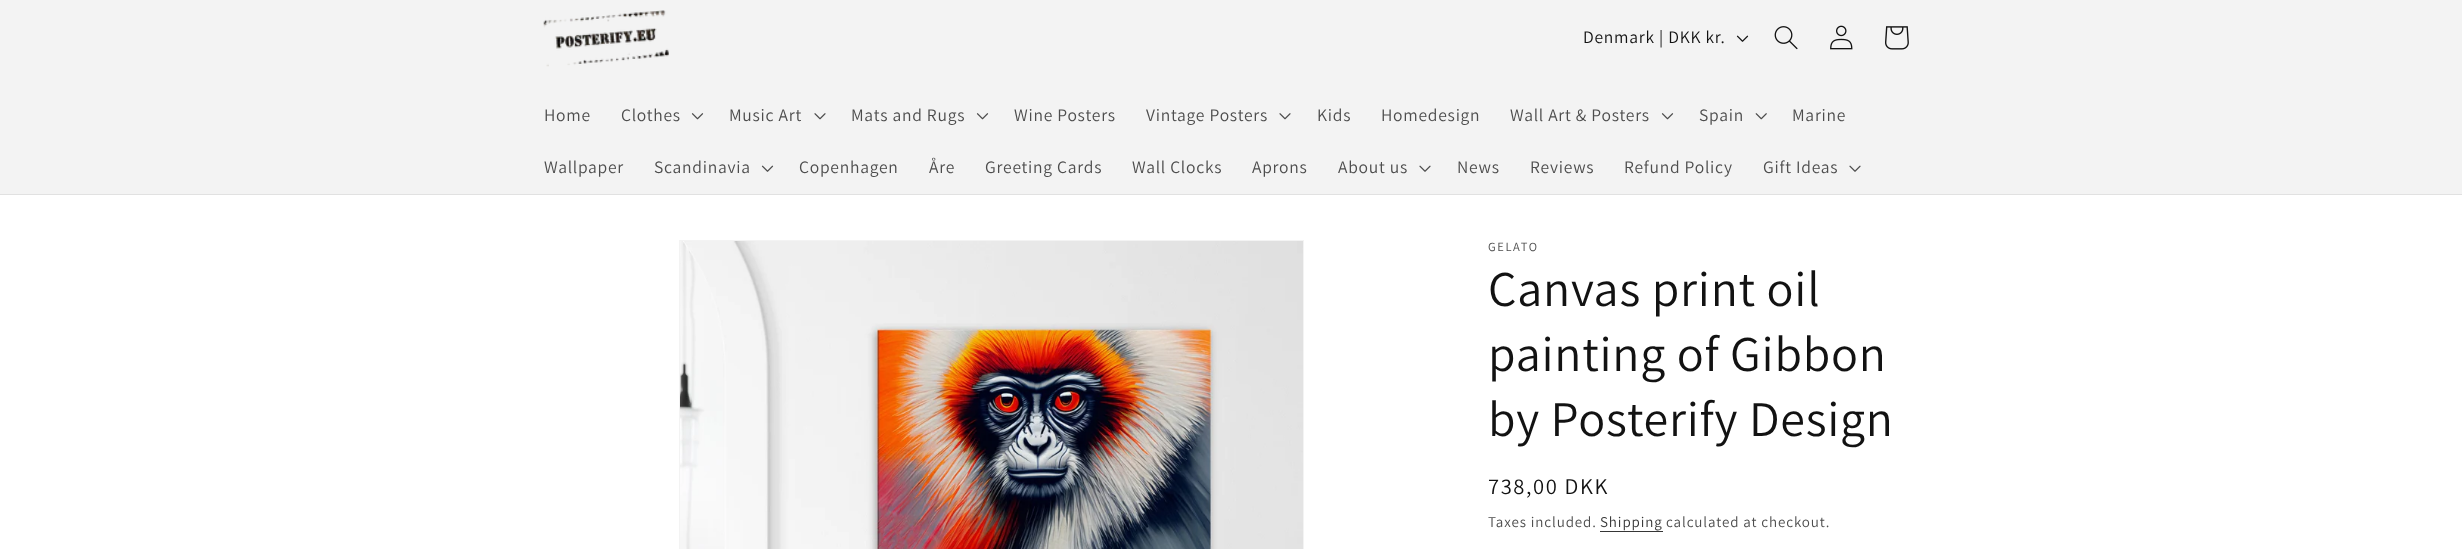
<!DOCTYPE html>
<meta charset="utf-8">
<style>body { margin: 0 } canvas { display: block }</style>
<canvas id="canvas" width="2462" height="549"></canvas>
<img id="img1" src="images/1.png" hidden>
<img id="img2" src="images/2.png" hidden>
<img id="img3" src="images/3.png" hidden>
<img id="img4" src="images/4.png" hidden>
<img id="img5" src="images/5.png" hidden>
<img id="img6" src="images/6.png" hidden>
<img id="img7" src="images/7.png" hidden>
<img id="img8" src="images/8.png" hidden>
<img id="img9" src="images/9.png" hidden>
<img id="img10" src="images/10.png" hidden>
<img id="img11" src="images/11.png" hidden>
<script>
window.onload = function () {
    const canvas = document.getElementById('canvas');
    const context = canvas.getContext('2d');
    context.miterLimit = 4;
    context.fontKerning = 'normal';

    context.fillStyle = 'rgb(255, 255, 255)';
    context.fillRect(0, 0, 2462, 549);
    context.fillStyle = 'rgb(243, 243, 243)';
    context.fillRect(0, 0, 2462, 194);
    context.fillStyle = 'rgb(225, 225, 225)';
    context.fillRect(0, 194, 2462, 1);
    context.drawImage(document.getElementById('img1'), 543, 10, 126, 57);
    context.drawImage(document.getElementById('img2'), 1736, 35, 13, 7);
    context.drawImage(document.getElementById('img3'), 1774, 26, 24, 24);
    context.drawImage(document.getElementById('img4'), 1830, 25, 23, 25);
    context.drawImage(document.getElementById('img5'), 1885, 26, 24, 24);
    context.drawImage(document.getElementById('img6'), 691, 113, 13, 7);
    context.drawImage(document.getElementById('img7'), 814, 113, 12, 7);
    context.drawImage(document.getElementById('img6'), 976, 113, 13, 7);
    context.drawImage(document.getElementById('img7'), 1279, 113, 12, 7);
    context.drawImage(document.getElementById('img6'), 1661, 113, 13, 7);
    context.drawImage(document.getElementById('img8'), 1755, 113, 12, 7);
    context.drawImage(document.getElementById('img9'), 761, 165, 13, 7);
    context.drawImage(document.getElementById('img10'), 1419, 165, 12, 7);
    context.drawImage(document.getElementById('img10'), 1849, 165, 12, 7);
    context.strokeStyle = 'rgb(243, 243, 243)';
    context.strokeRect(679.5, 240.5, 624, 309);
    context.drawImage(document.getElementById('img11'), 680, 241, 623, 308);
    context.fillStyle = 'rgb(54, 54, 54)';
    context.fillRect(1600, 531, 63, 1);
    context.letterSpacing = '0.75px';
    context.font = '17.5px Assistant';
    context.fillStyle = 'rgb(18, 18, 18)';
    context.fillText('Denmark | DKK kr.', 1583, 43);
    context.fillStyle = 'rgb(77, 77, 77)';
    context.fillText('Home', 544, 121);
    context.fillText('Clothes', 621, 121);
    context.fillText('Music Art', 729, 121);
    context.fillText('Mats and Rugs', 851, 121);
    context.fillText('Wine Posters', 1014, 121);
    context.fillText('Vintage Posters', 1146, 121);
    context.fillText('Kids', 1317, 121);
    context.fillText('Homedesign', 1381, 121);
    context.fillText('Wall Art & Posters', 1510, 121);
    context.fillText('Spain', 1699, 121);
    context.fillText('Marine', 1792, 121);
    context.fillText('Wallpaper', 544, 173);
    context.fillText('Scandinavia', 654, 173);
    context.fillText('Copenhagen', 799, 173);
    context.fillText('Åre', 929, 173);
    context.fillText('Greeting Cards', 985, 173);
    context.fillText('Wall Clocks', 1132, 173);
    context.fillText('Aprons', 1252, 173);
    context.fillText('About us', 1338, 173);
    context.fillText('News', 1457, 173);
    context.fillText('Reviews', 1530, 173);
    context.fillText('Refund Policy', 1624, 173);
    context.fillText('Gift Ideas', 1763, 173);
    context.letterSpacing = '1.6px';
    context.font = '12.5px Assistant';
    context.fillText('GELATO', 1488, 251);
    context.letterSpacing = '0.75px';
    context.font = '50px Assistant';
    context.fillStyle = 'rgb(18, 18, 18)';
    context.fillText('Canvas print oil', 1488, 306);
    context.fillText('painting of Gibbon', 1488, 371);
    context.fillText('by Posterify Design', 1488, 436);
    context.letterSpacing = '1.6px';
    context.font = '22.5px Assistant';
    context.fillText('738,00 DKK', 1488, 494);
    context.letterSpacing = '0.9px';
    context.font = '15px Assistant';
    context.fillStyle = 'rgb(77, 77, 77)';
    context.fillText('Taxes included.', 1488, 527);
    context.fillStyle = 'rgb(54, 54, 54)';
    context.fillText('Shipping', 1600, 527);
    context.fillStyle = 'rgb(77, 77, 77)';
    context.fillText('calculated at checkout.', 1666, 527);
};
</script>
